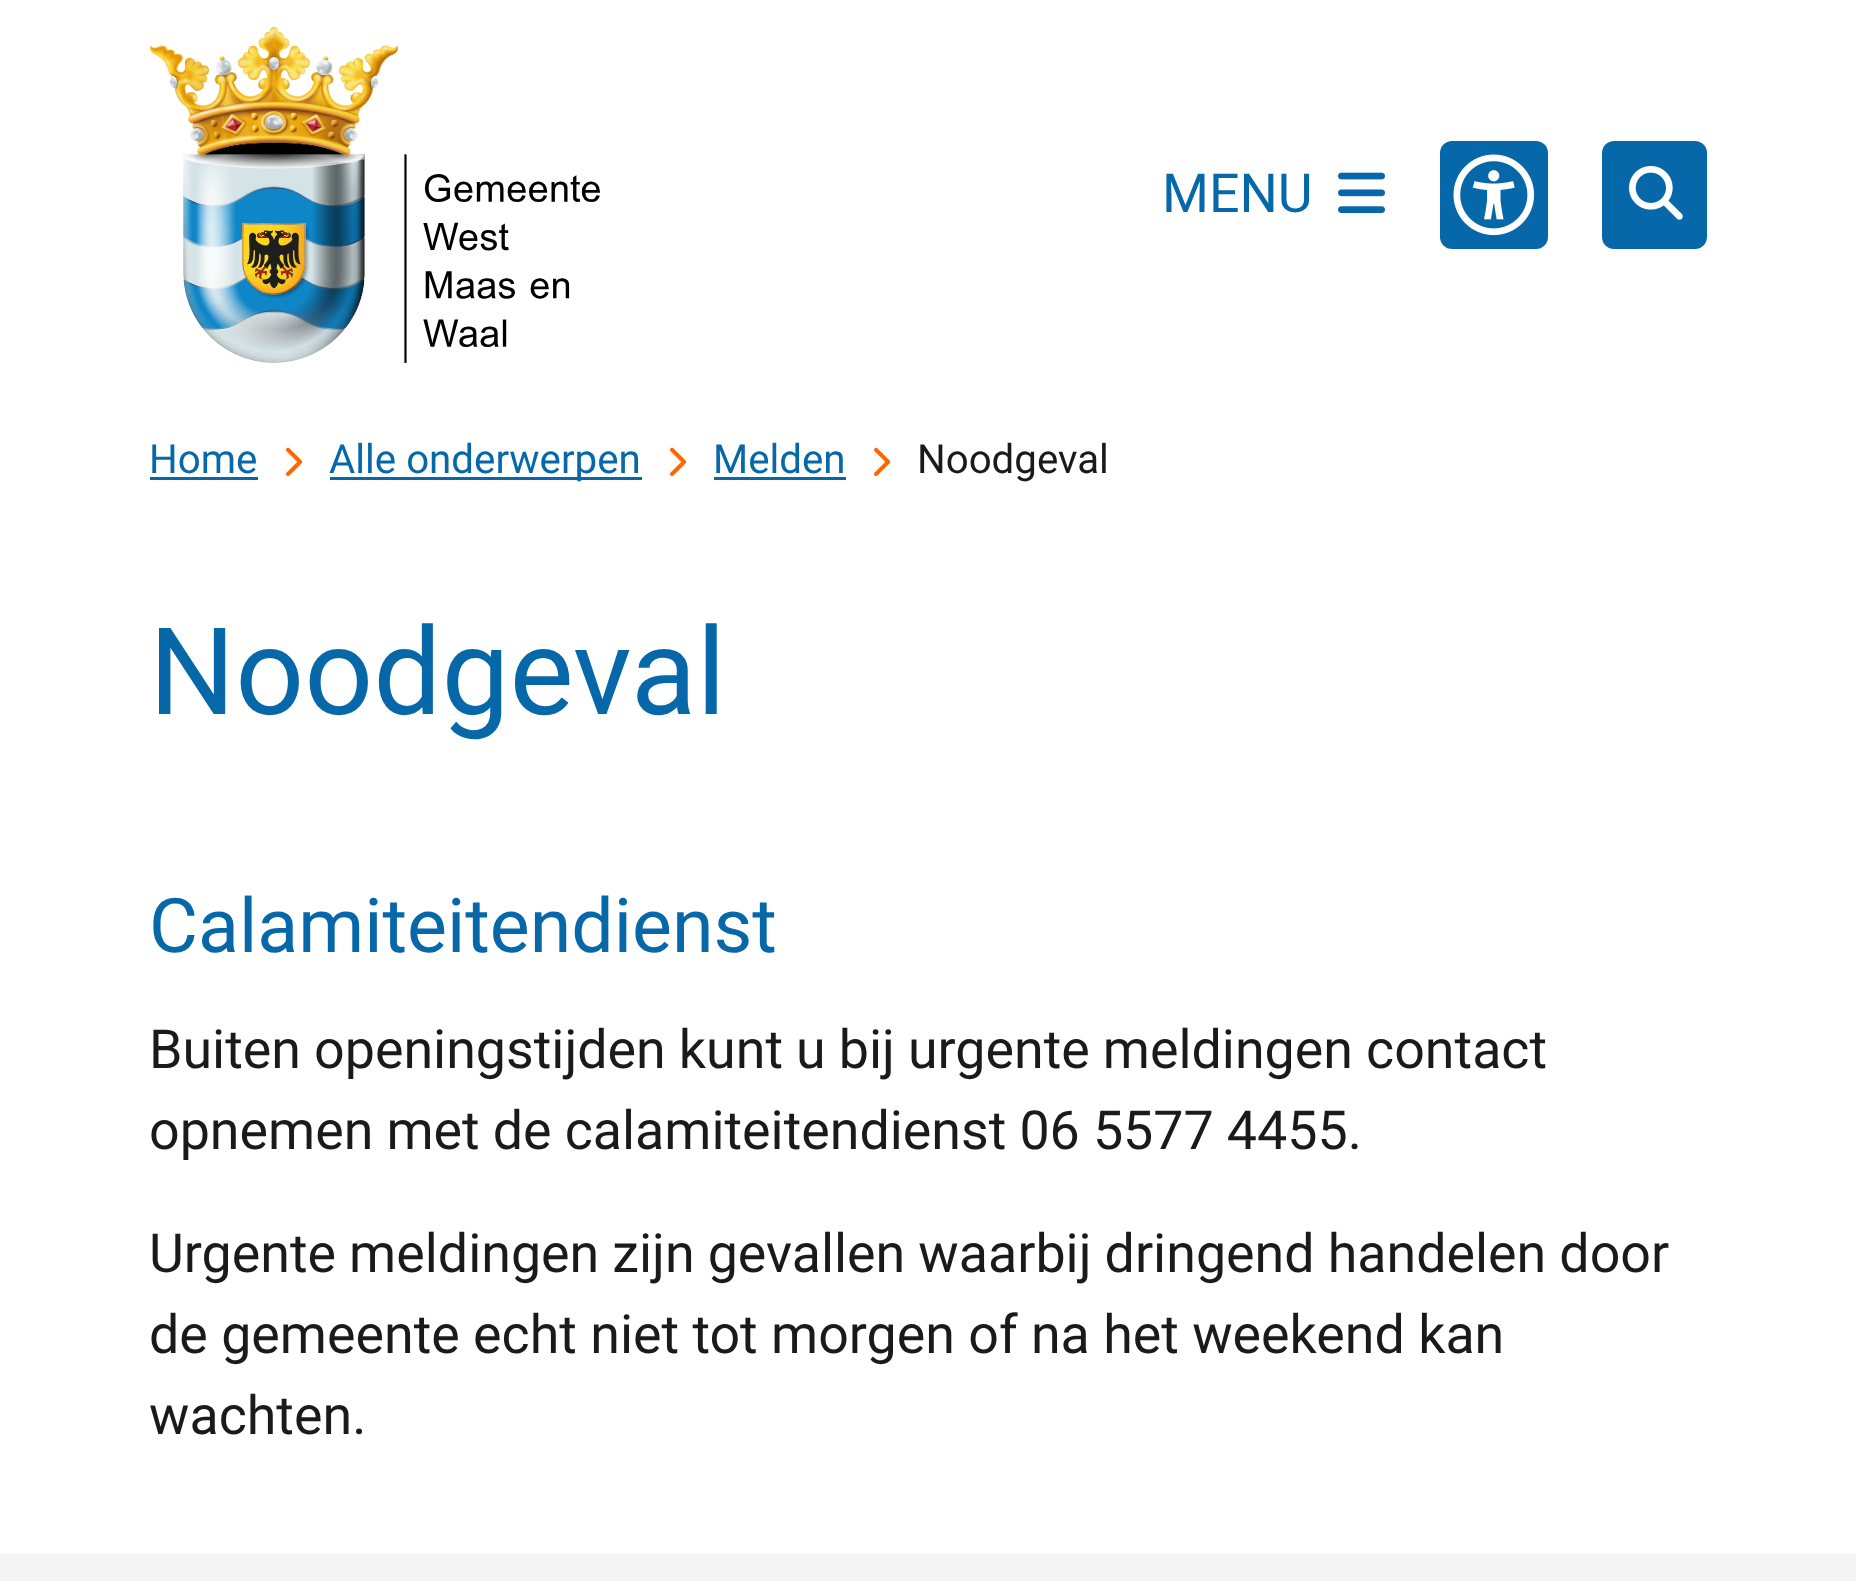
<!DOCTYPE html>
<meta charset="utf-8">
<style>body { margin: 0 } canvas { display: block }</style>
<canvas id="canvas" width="1856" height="1581"></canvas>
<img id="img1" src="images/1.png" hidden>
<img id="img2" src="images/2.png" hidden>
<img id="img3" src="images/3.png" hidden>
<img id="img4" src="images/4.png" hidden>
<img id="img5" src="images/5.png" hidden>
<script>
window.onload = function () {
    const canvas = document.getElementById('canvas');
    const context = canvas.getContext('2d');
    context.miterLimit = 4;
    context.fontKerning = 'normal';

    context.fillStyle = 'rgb(255, 255, 255)';
    context.fillRect(0, 0, 1856, 1581);
    context.drawImage(document.getElementById('img1'), 150, 27, 450, 336);
    context.drawImage(document.getElementById('img2'), 1338, 172, 47, 41);
    context.fillStyle = 'rgb(7, 104, 169)';
    context.beginPath();
    context.roundRect(1440, 141, 108, 108, 12);
    context.fill();
    context.drawImage(document.getElementById('img3'), 1453, 154, 82, 82);
    context.beginPath();
    context.roundRect(1602, 141, 105, 108, 12);
    context.fill();
    context.drawImage(document.getElementById('img4'), 1629, 166, 54, 54);
    context.fillRect(150, 477, 108, 3);
    context.drawImage(document.getElementById('img5'), 286, 447, 17, 29);
    context.fillRect(330, 477, 312, 3);
    context.drawImage(document.getElementById('img5'), 670, 447, 17, 29);
    context.fillRect(714, 477, 132, 3);
    context.drawImage(document.getElementById('img5'), 874, 447, 17, 29);
    context.fillStyle = 'rgb(244, 244, 244)';
    context.fillRect(0, 1554, 1856, 27);
    context.font = '53.75px Roboto';
    context.fillStyle = 'rgb(7, 104, 169)';
    context.fillText('MENU', 1162, 212);
    context.font = '40.25px Roboto';
    context.fillText('Home', 149, 473);
    context.fillText('Alle onderwerpen', 329, 473);
    context.fillText('Melden', 713, 473);
    context.fillStyle = 'rgb(26, 26, 26)';
    context.fillText('Noodgeval', 917, 473);
    context.font = '121px Roboto';
    context.fillStyle = 'rgb(7, 104, 169)';
    context.fillText('Noodgeval', 149, 714);
    context.font = '75.25px Roboto';
    context.fillText('Calamiteitendienst', 149, 952);
    context.wordSpacing = '-0.25px';
    context.font = '53.75px Roboto';
    context.fillStyle = 'rgb(26, 26, 26)';
    context.fillText('Buiten openingstijden kunt u bij urgente meldingen contact', 149, 1068);
    context.fillText('opnemen met de calamiteitendienst 06 5577 4455.', 149, 1149);
    context.fillText('Urgente meldingen zijn gevallen waarbij dringend handelen door', 149, 1272);
    context.wordSpacing = '0px';
    context.fillText('de gemeente echt niet tot morgen of na het weekend kan', 149, 1353);
    context.fillText('wachten.', 149, 1434);
};
</script>
